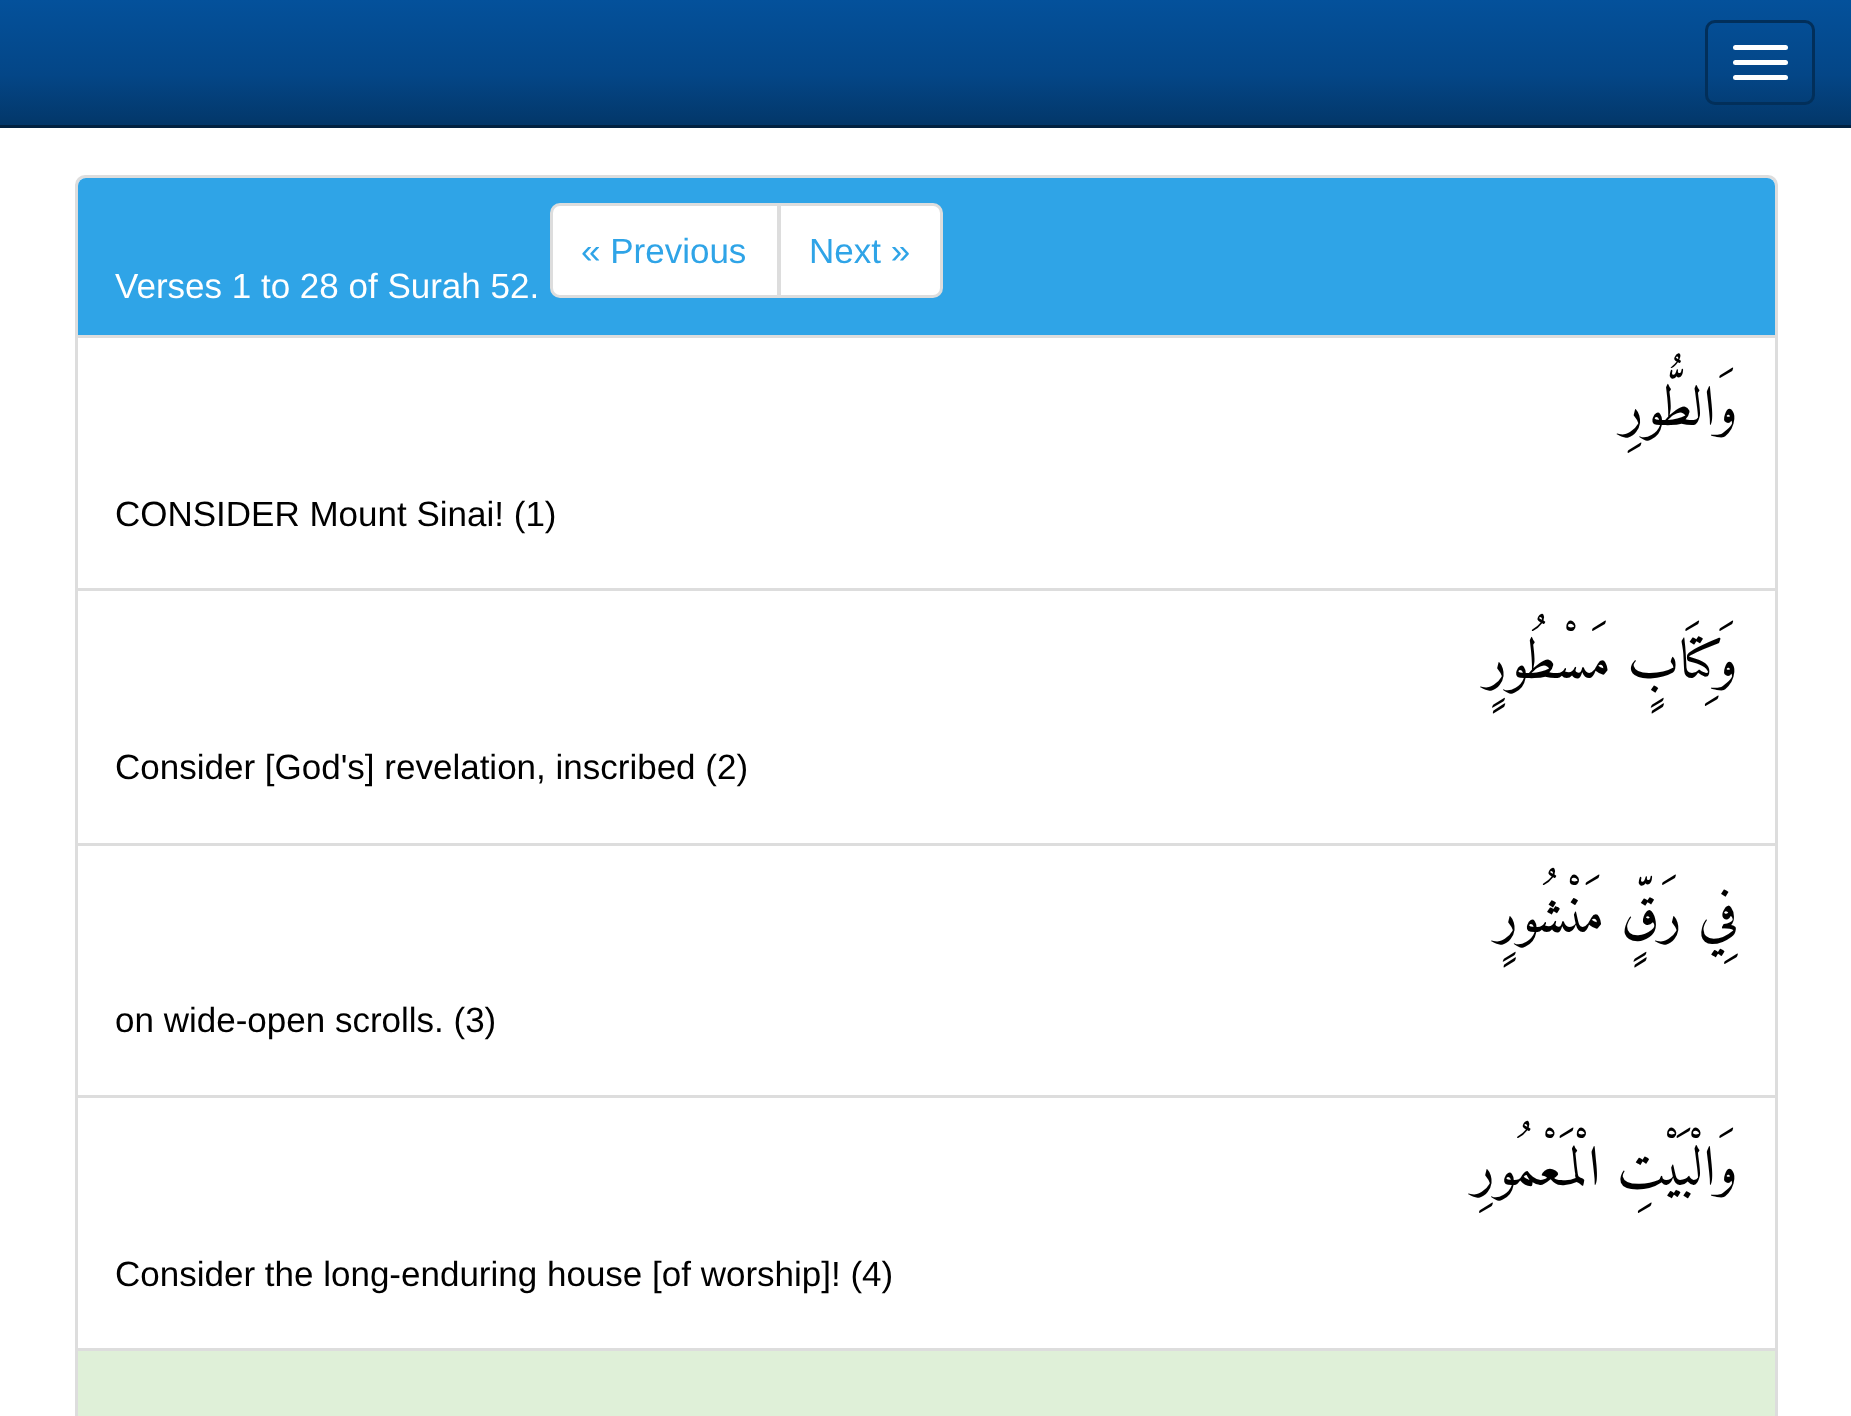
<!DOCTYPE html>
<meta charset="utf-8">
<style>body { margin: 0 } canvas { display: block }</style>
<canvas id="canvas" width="1851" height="1416"></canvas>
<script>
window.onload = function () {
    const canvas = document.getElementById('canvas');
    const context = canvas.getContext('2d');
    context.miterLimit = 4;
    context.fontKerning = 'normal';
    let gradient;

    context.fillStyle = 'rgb(255, 255, 255)';
    context.fillRect(0, 0, 1851, 1416);
    gradient = context.createLinearGradient(926, 0, 926, 125);
    gradient.addColorStop(0, 'rgb(4, 81, 155)');
    gradient.addColorStop(0.6, 'rgb(4, 70, 135)');
    gradient.addColorStop(1, 'rgb(3, 55, 105)');
    context.fillStyle = gradient;
    context.fillRect(0, 0, 1851, 125);
    context.fillStyle = 'rgb(2, 34, 65)';
    context.fillRect(0, 125, 1851, 3);
    context.beginPath();
    context.roundRect(1706.5, 21.5, 107, 82, 8.5);
    context.strokeStyle = 'rgb(2, 47, 90)';
    context.lineWidth = 3;
    context.stroke();
    context.fillStyle = 'rgb(255, 255, 255)';
    context.beginPath();
    context.roundRect(1733, 45, 55, 5, 2.5);
    context.fill();
    context.beginPath();
    context.roundRect(1733, 60, 55, 5, 2.5);
    context.fill();
    context.beginPath();
    context.roundRect(1733, 75, 55, 5, 2.5);
    context.fill();
    context.beginPath();
    context.roundRect(76.5, 176.5, 1700, 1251, 8.5);
    context.strokeStyle = 'rgb(221, 221, 221)';
    context.stroke();
    context.fillStyle = 'rgb(47, 164, 231)';
    context.beginPath();
    context.roundRect(78, 178, 1697, 160, [8, 8, 0, 0]);
    context.fill();
    context.fillStyle = 'rgb(221, 221, 221)';
    context.fillRect(78, 335, 1697, 3);
    context.fillStyle = 'rgb(255, 255, 255)';
    context.beginPath();
    context.roundRect(551.5, 204.5, 227, 92, [8.5, 0, 0, 8.5]);
    context.fill();
    context.stroke();
    context.beginPath();
    context.roundRect(779.5, 204.5, 162, 92, [0, 8.5, 8.5, 0]);
    context.fill();
    context.stroke();
    context.fillStyle = 'rgb(221, 221, 221)';
    context.fillRect(78, 588, 1697, 3);
    context.fillRect(78, 843, 1697, 3);
    context.fillRect(78, 1095, 1697, 3);
    context.fillStyle = 'rgb(223, 240, 216)';
    context.fillRect(78, 1351, 1697, 65);
    context.fillStyle = 'rgb(221, 221, 221)';
    context.fillRect(78, 1348, 1697, 3);
    context.font = '35px Liberation Sans';
    context.fillStyle = 'rgb(47, 164, 231)';
    context.fillText('« Previous', 581, 263);
    context.fillText('Next »', 809, 263);
    context.fillStyle = 'rgb(255, 255, 255)';
    context.fillText('Verses 1 to 28 of Surah 52.', 115, 298);
    context.direction = 'rtl';
    context.font = '56px Amiri';
    context.fillStyle = 'rgb(0, 0, 0)';
    context.fillText('وَالطُّورِ', 1738, 425);
    context.direction = 'ltr';
    context.font = '35px Liberation Sans';
    context.fillText('CONSIDER Mount Sinai! (1)', 115, 526);
    context.direction = 'rtl';
    context.font = '56px Amiri';
    context.fillText('وَكِتَابٍ مَسْطُورٍ', 1738, 678);
    context.direction = 'ltr';
    context.font = '35px Liberation Sans';
    context.fillText('Consider [God\'s] revelation, inscribed (2)', 115, 779);
    context.direction = 'rtl';
    context.font = '56px Amiri';
    context.fillText('فِي رَقٍّ مَنْشُورٍ', 1738, 932);
    context.direction = 'ltr';
    context.font = '35px Liberation Sans';
    context.fillText('on wide-open scrolls. (3)', 115, 1032);
    context.direction = 'rtl';
    context.font = '56px Amiri';
    context.fillText('وَالْبَيْتِ الْمَعْمُورِ', 1738, 1185);
    context.direction = 'ltr';
    context.font = '35px Liberation Sans';
    context.fillText('Consider the long-enduring house [of worship]! (4)', 115, 1286);
};
</script>
